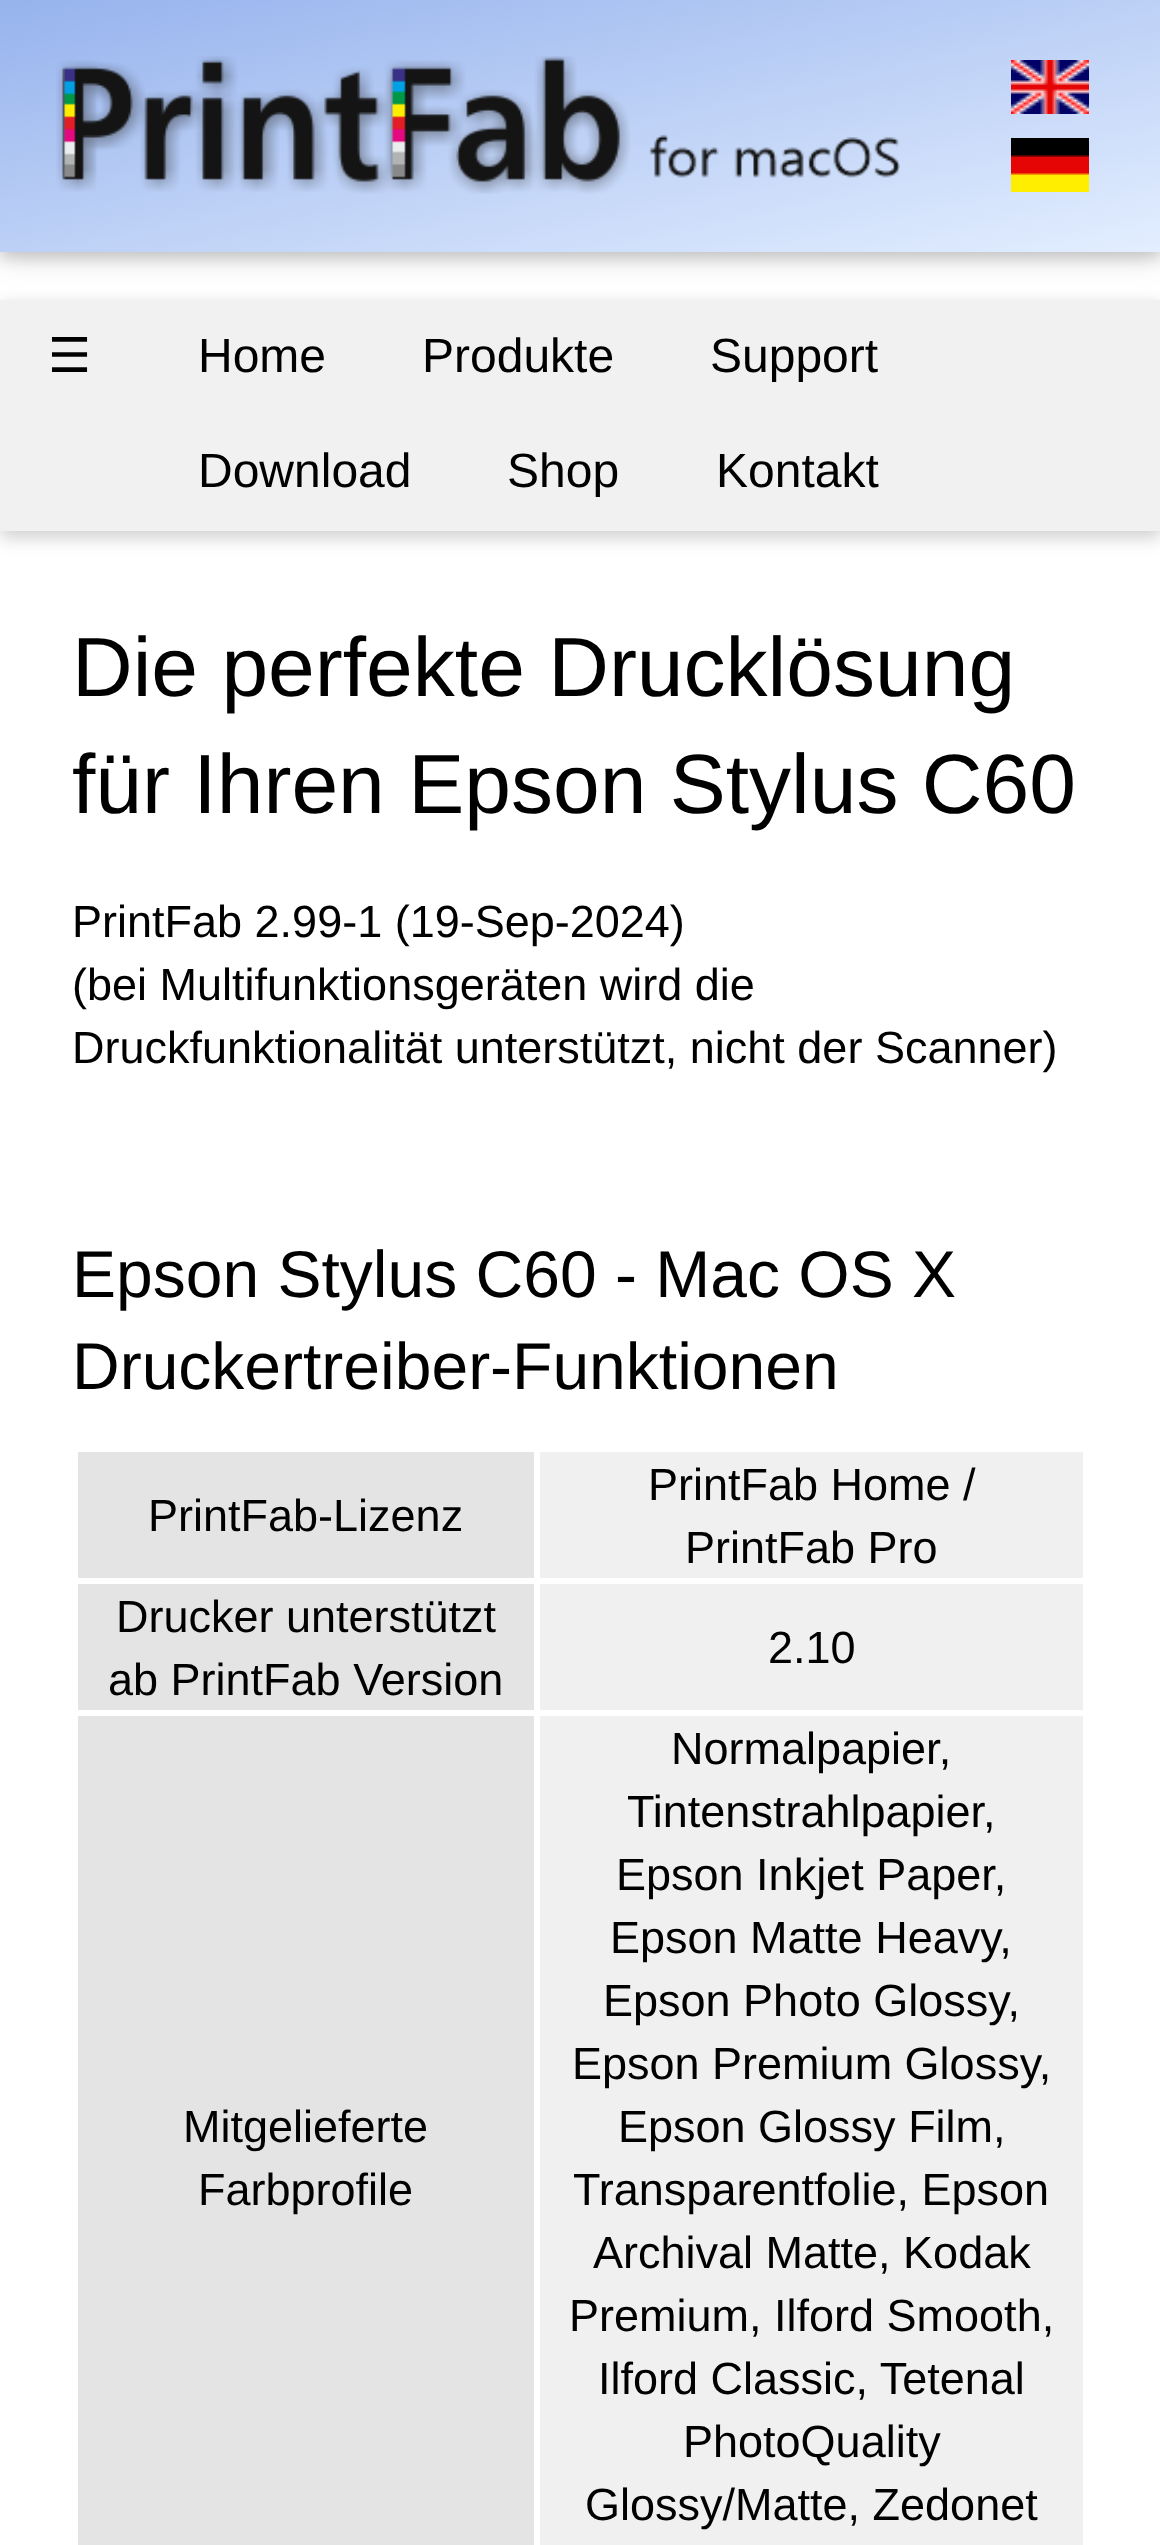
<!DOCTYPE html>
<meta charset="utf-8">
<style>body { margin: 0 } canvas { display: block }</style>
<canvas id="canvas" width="1160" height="2545"></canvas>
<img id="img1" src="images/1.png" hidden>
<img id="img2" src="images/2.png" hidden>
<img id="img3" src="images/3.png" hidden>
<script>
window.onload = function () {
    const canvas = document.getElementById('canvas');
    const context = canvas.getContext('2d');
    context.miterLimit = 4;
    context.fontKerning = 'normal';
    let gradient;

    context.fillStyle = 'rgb(255, 255, 255)';
    context.fillRect(0, 0, 1160, 2545);
    context.fillStyle = 'rgba(0, 0, 0, 0.12)';
    context.filter = 'blur(15px)';
    context.beginPath();
    context.rect(0, 6, 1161, 252);
    context.fill();
    context.filter = 'none';
    context.fillStyle = 'rgba(0, 0, 0, 0.16)';
    context.filter = 'blur(7.5px)';
    context.beginPath();
    context.rect(0, 6, 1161, 252);
    context.fill();
    context.filter = 'none';
    gradient = context.createLinearGradient(528, -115, 633, 367);
    gradient.addColorStop(0, 'rgb(150, 179, 237)');
    gradient.addColorStop(1, 'rgb(227, 238, 255)');
    context.fillStyle = gradient;
    context.fillRect(0, 0, 1160, 252);
    context.drawImage(document.getElementById('img1'), 56, 56, 844, 138);
    context.drawImage(document.getElementById('img2'), 1011, 60, 78, 54);
    context.drawImage(document.getElementById('img3'), 1011, 138, 78, 54);
    context.fillStyle = 'rgba(0, 0, 0, 0.2)';
    context.filter = 'blur(9px)';
    context.beginPath();
    context.rect(0, 306, 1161, 231);
    context.fill();
    context.filter = 'none';
    context.fillStyle = 'rgb(241, 241, 241)';
    context.fillRect(0, 300, 1160, 231);
    context.fillStyle = 'rgb(228, 228, 228)';
    context.fillRect(78, 1452, 456, 126);
    context.fillStyle = 'rgb(240, 240, 240)';
    context.fillRect(540, 1452, 543, 126);
    context.fillStyle = 'rgb(228, 228, 228)';
    context.fillRect(78, 1584, 456, 126);
    context.fillStyle = 'rgb(240, 240, 240)';
    context.fillRect(540, 1584, 543, 126);
    context.fillStyle = 'rgb(228, 228, 228)';
    context.fillRect(78, 1716, 456, 829);
    context.fillStyle = 'rgb(240, 240, 240)';
    context.fillRect(540, 1716, 543, 829);
    context.font = '48px DejaVu Sans';
    context.fillStyle = 'rgb(0, 0, 0)';
    context.fillText('☰', 48, 372);
    context.font = '48px Liberation Sans';
    context.fillText('Home', 198, 372);
    context.fillText('Produkte', 422, 372);
    context.fillText('Support', 710, 372);
    context.fillText('Download', 198, 487);
    context.fillText('Shop', 507, 487);
    context.fillText('Kontakt', 716, 487);
    context.font = '84px Liberation Sans';
    context.fillText('Die perfekte Drucklösung', 72, 696);
    context.fillText('für Ihren Epson Stylus C60', 72, 813);
    context.font = '45px Liberation Sans';
    context.fillText('PrintFab 2.99-1 (19-Sep-2024)', 72, 937);
    context.fillText('(bei Multifunktionsgeräten wird die', 72, 1000);
    context.fillText('Druckfunktionalität unterstützt, nicht der Scanner)', 72, 1063);
    context.font = '66px Liberation Sans';
    context.fillText('Epson Stylus C60 - Mac OS X', 72, 1297);
    context.fillText('Druckertreiber-Funktionen', 72, 1389);
    context.font = '45px Liberation Sans';
    context.fillText('PrintFab-Lizenz', 148, 1531);
    context.fillText('PrintFab Home /', 648, 1500);
    context.fillText('PrintFab Pro', 685, 1563);
    context.fillText('Drucker unterstützt', 116, 1632);
    context.fillText('ab PrintFab Version', 108, 1695);
    context.fillText('2.10', 768, 1663);
    context.fillText('Mitgelieferte', 183, 2142);
    context.fillText('Farbprofile', 198, 2205);
    context.fillText('Normalpapier,', 671, 1764);
    context.fillText('Tintenstrahlpapier,', 627, 1827);
    context.fillText('Epson Inkjet Paper,', 616, 1890);
    context.fillText('Epson Matte Heavy,', 610, 1953);
    context.fillText('Epson Photo Glossy,', 603, 2016);
    context.fillText('Epson Premium Glossy,', 572, 2079);
    context.fillText('Epson Glossy Film,', 618, 2142);
    context.fillText('Transparentfolie, Epson', 573, 2205);
    context.fillText('Archival Matte, Kodak', 593, 2268);
    context.fillText('Premium, Ilford Smooth,', 569, 2331);
    context.fillText('Ilford Classic, Tetenal', 598, 2394);
    context.fillText('PhotoQuality', 683, 2457);
    context.fillText('Glossy/Matte, Zedonet', 585, 2520);
};
</script>
